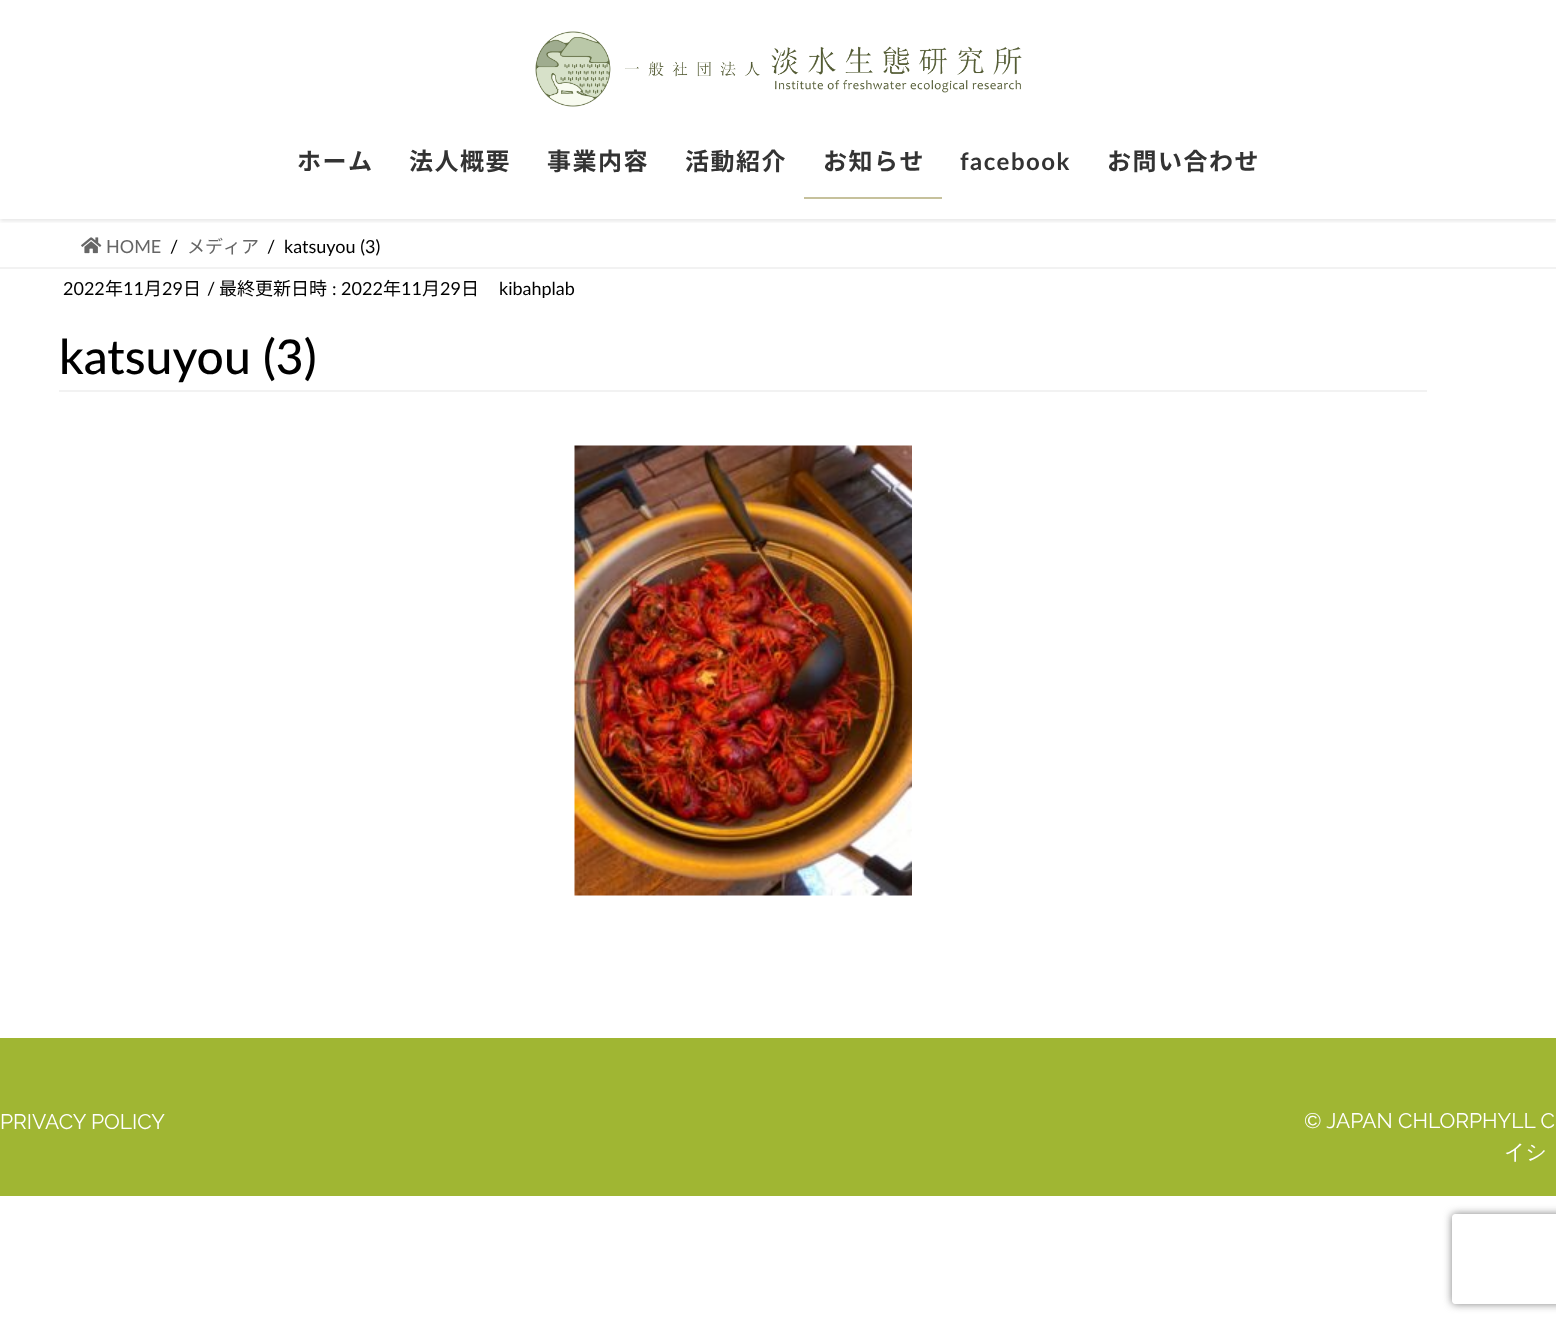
<!DOCTYPE html>
<meta charset="utf-8">
<style>body { margin: 0 } canvas { display: block }</style>
<canvas id="canvas" width="1556" height="1324"></canvas>
<img id="img1" src="images/1.png" hidden>
<img id="img2" src="images/2.png" hidden>
<img id="img3" src="images/3.png" hidden>
<script>
window.onload = function () {
    const canvas = document.getElementById('canvas');
    const context = canvas.getContext('2d');
    context.miterLimit = 4;
    context.fontKerning = 'normal';

    context.fillStyle = 'rgb(255, 255, 255)';
    context.fillRect(0, 0, 1556, 1324);
    context.save();
    context.beginPath();
    context.rect(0, 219, 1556, 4);
    context.clip();
    context.fillStyle = 'rgba(0, 0, 0, 0.1)';
    context.filter = 'blur(2px)';
    context.beginPath();
    context.rect(0, 2, 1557, 219);
    context.fill();
    context.filter = 'none';
    context.restore();
    context.drawImage(document.getElementById('img1'), 535, 31, 487, 76);
    context.fillStyle = 'rgb(198, 193, 156)';
    context.fillRect(804, 197, 138, 2);
    context.fillStyle = 'rgb(242, 242, 242)';
    context.fillRect(0, 267, 1556, 2);
    context.drawImage(document.getElementById('img2'), 81, 237, 21, 17);
    context.fillRect(59, 390, 1368, 2);
    context.drawImage(document.getElementById('img3'), 574, 445, 338, 451);
    context.fillStyle = 'rgb(160, 182, 51)';
    context.fillRect(0, 1038, 1556, 158);
    context.save();
    context.beginPath();
    context.moveTo(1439, 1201);
    context.lineTo(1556, 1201);
    context.lineTo(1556, 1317);
    context.lineTo(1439, 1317);
    context.closePath();
    context.moveTo(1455, 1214);
    context.lineTo(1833, 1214);
    context.bezierCurveTo(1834.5, 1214, 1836, 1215.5, 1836, 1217);
    context.lineTo(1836, 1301);
    context.bezierCurveTo(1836, 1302.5, 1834.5, 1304, 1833, 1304);
    context.lineTo(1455, 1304);
    context.bezierCurveTo(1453.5, 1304, 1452, 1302.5, 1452, 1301);
    context.lineTo(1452, 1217);
    context.bezierCurveTo(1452, 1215.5, 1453.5, 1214, 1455, 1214);
    context.closePath();
    context.clip('evenodd');
    context.fillStyle = 'rgb(128, 128, 128)';
    context.filter = 'blur(4px)';
    context.beginPath();
    context.roundRect(1452, 1214, 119, 90, 3);
    context.fill();
    context.filter = 'none';
    context.restore();
    context.letterSpacing = '1.5px';
    context.font = 'bold 24px Noto Sans JP';
    context.fillStyle = 'rgb(51, 51, 51)';
    context.fillText('ホーム', 297, 170);
    context.fillText('法人概要', 409, 170);
    context.fillText('事業内容', 547, 170);
    context.fillText('活動紹介', 685, 170);
    context.fillText('お知らせ', 823, 170);
    context.font = 'bold 24px Lato';
    context.fillText('facebook', 960, 170);
    context.font = 'bold 24px Noto Sans JP';
    context.fillText('お問い合わせ', 1107, 170);
    context.letterSpacing = '0px';
    context.font = '18px Lato';
    context.fillStyle = 'rgb(102, 102, 102)';
    context.fillText('HOME', 106, 253);
    context.fillStyle = 'rgb(0, 0, 0)';
    context.fillText('/', 170, 253);
    context.font = '18px Noto Sans JP';
    context.fillStyle = 'rgb(102, 102, 102)';
    context.fillText('メディア', 187, 253);
    context.font = '18px Lato';
    context.fillStyle = 'rgb(0, 0, 0)';
    context.fillText('/', 267, 253);
    context.fillText('katsuyou (3)', 284, 253);
    context.fillText('2022', 63, 295);
    context.font = '18px Noto Sans JP';
    context.fillText('年', 105, 295);
    context.font = '18px Lato';
    context.fillText('11', 123, 295);
    context.font = '18px Noto Sans JP';
    context.fillText('月', 144, 295);
    context.font = '18px Lato';
    context.fillText('29', 162, 295);
    context.font = '18px Noto Sans JP';
    context.fillText('日', 183, 295);
    context.font = '18px Lato';
    context.fillText('/', 207, 295);
    context.font = '18px Noto Sans JP';
    context.fillText('最終更新日時', 219, 295);
    context.font = '18px Lato';
    context.fillText(': 2022', 332, 295);
    context.font = '18px Noto Sans JP';
    context.fillText('年', 383, 295);
    context.font = '18px Lato';
    context.fillText('11', 401, 295);
    context.font = '18px Noto Sans JP';
    context.fillText('月', 422, 295);
    context.font = '18px Lato';
    context.fillText('29', 440, 295);
    context.font = '18px Noto Sans JP';
    context.fillText('日', 461, 295);
    context.font = '18px Lato';
    context.fillText('kibahplab', 499, 295);
    context.font = '500 48px Lato';
    context.fillText('katsuyou (3)', 59, 374);
    context.font = '100 21px Raleway';
    context.fillStyle = 'rgb(255, 255, 255)';
    context.fillText('PRIVACY POLICY', 0, 1129);
    context.fillText('© JAPAN CHLORPHYLL C', 1304, 1128);
    context.font = '500 21px WenQuanYi Zen Hei';
    context.fillText('イシ', 1504, 1159);
};
</script>
